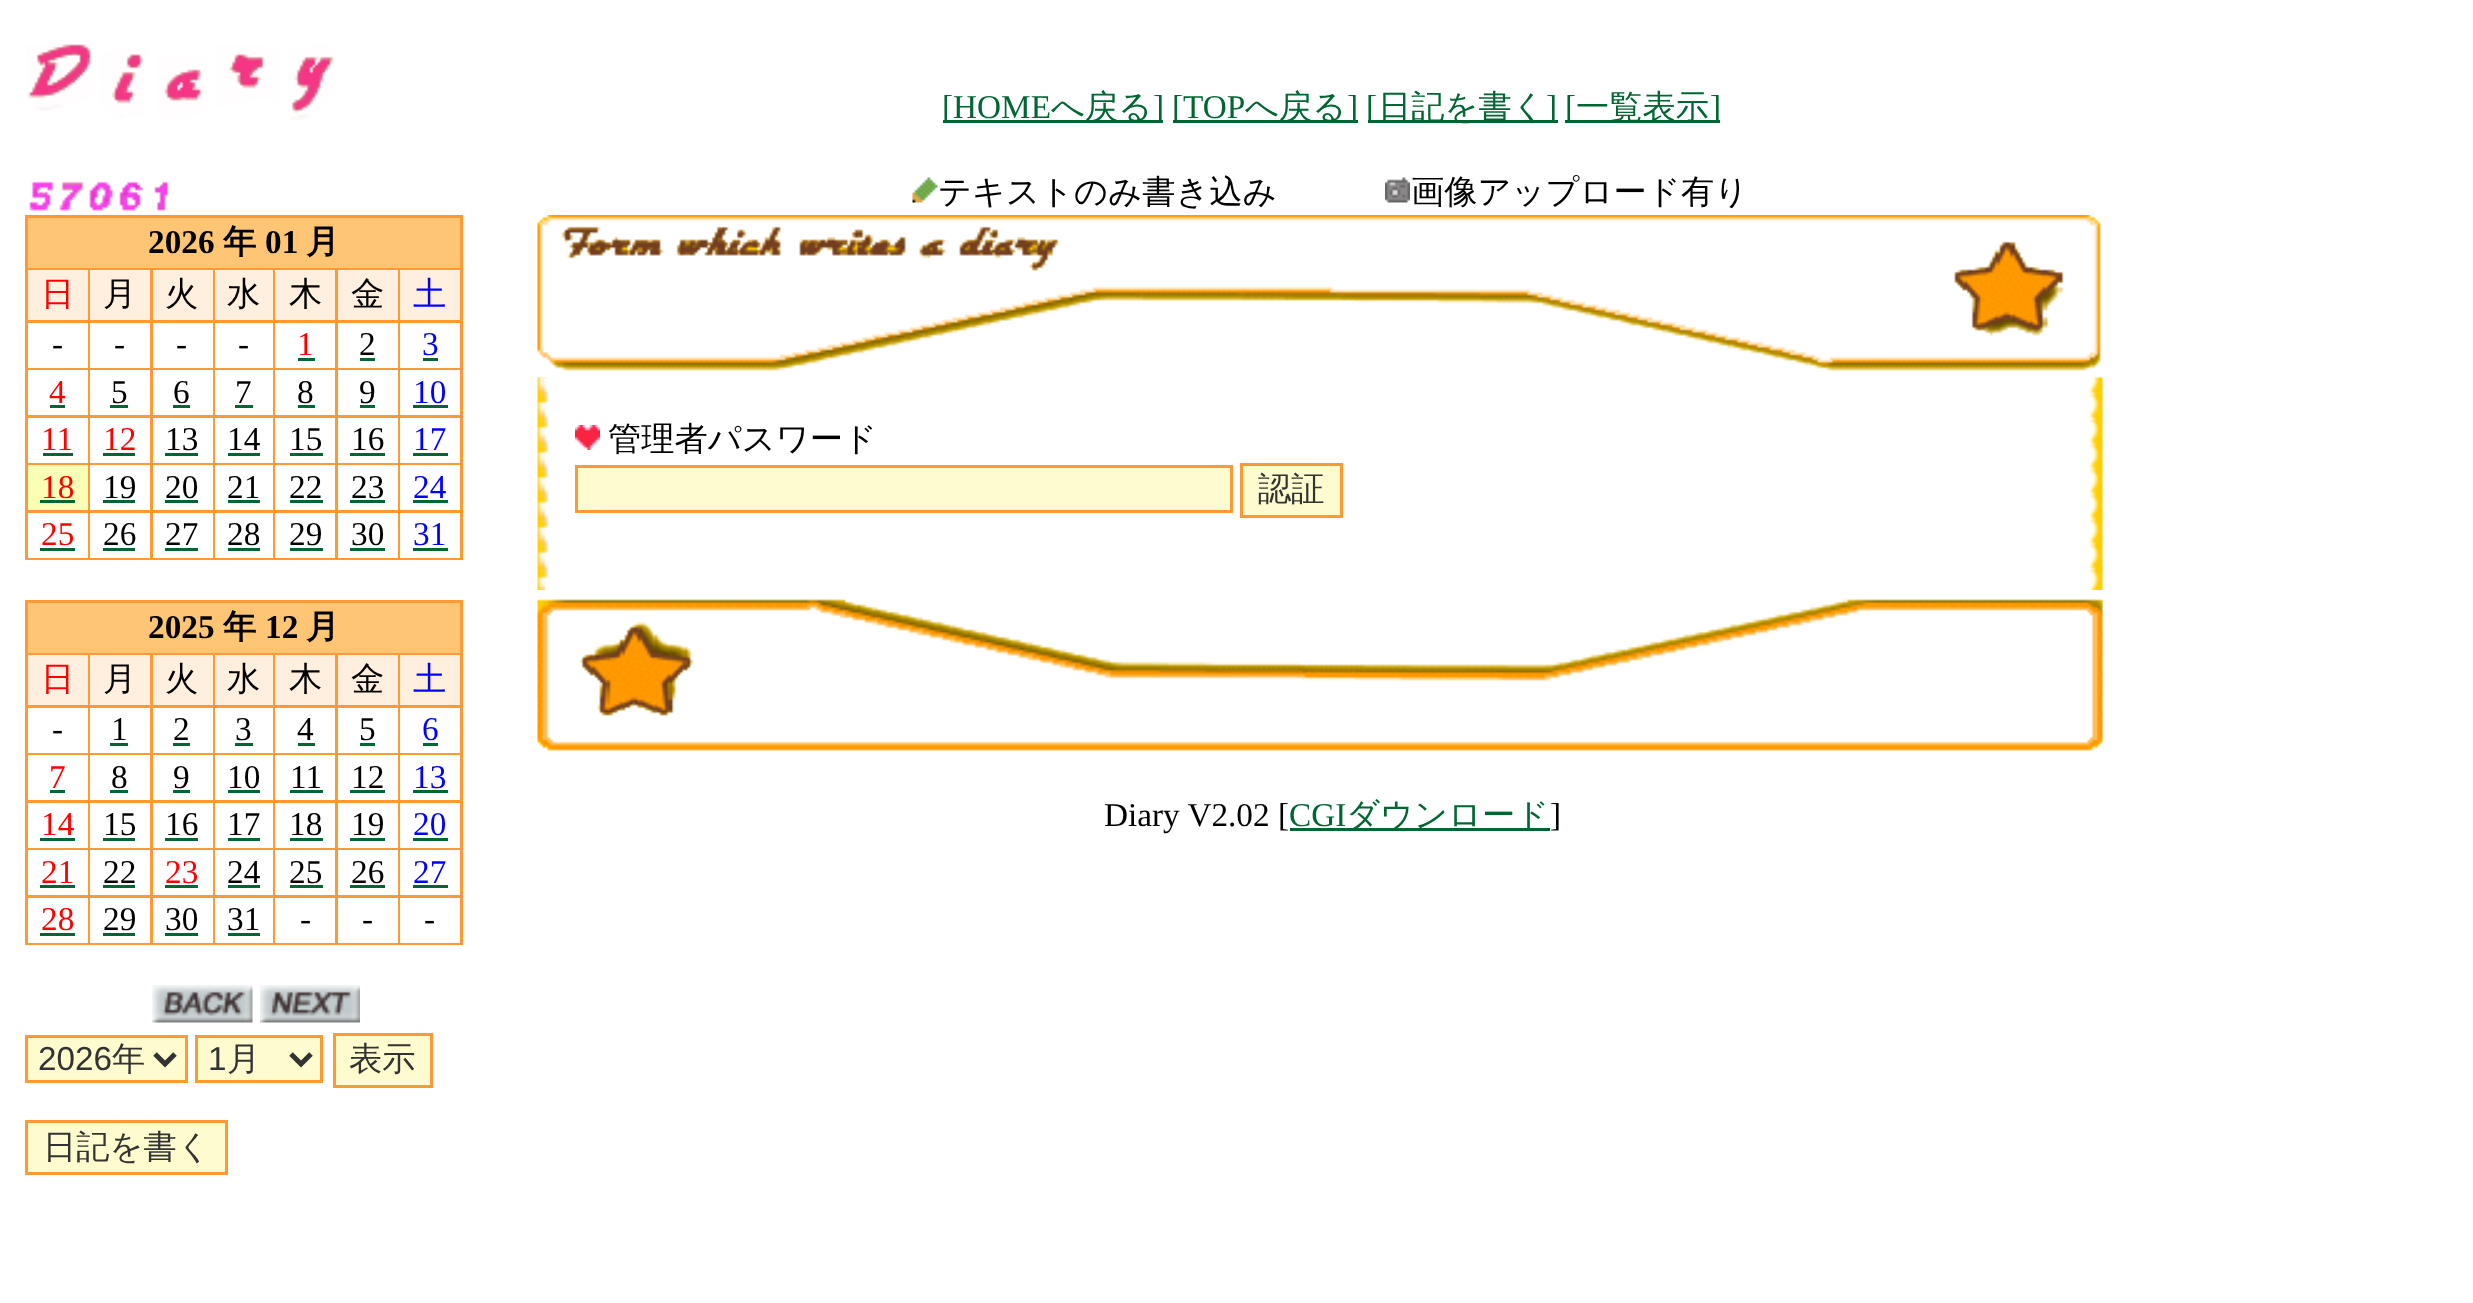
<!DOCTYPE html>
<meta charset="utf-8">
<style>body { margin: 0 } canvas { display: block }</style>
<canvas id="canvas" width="2473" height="1303"></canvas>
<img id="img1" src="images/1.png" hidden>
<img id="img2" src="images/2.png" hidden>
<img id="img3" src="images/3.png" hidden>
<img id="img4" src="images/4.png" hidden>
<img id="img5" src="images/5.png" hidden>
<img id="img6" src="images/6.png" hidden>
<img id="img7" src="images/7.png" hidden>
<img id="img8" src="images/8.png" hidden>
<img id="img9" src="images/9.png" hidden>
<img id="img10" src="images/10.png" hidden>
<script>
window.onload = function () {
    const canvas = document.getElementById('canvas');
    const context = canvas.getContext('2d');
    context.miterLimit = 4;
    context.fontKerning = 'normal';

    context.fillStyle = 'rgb(255, 255, 255)';
    context.fillRect(0, 0, 2473, 1303);
    context.drawImage(document.getElementById('img1'), 27, 44, 307, 76);
    context.drawImage(document.getElementById('img2'), 29, 181, 140, 30);
    context.fillStyle = 'rgb(0, 102, 51)';
    context.fillRect(943, 120, 220, 3);
    context.fillRect(1173, 120, 185, 3);
    context.fillRect(1368, 120, 190, 3);
    context.fillRect(1565, 120, 155, 3);
    context.drawImage(document.getElementById('img3'), 912, 177, 26, 26);
    context.drawImage(document.getElementById('img4'), 1385, 177, 25, 26);
    context.fillStyle = 'rgb(255, 153, 51)';
    context.fillRect(25, 215, 438, 345);
    context.fillStyle = 'rgb(254, 198, 116)';
    context.fillRect(28, 218, 432, 50);
    context.fillStyle = 'rgb(255, 239, 223)';
    context.fillRect(28, 270, 60, 50);
    context.fillRect(90, 270, 60, 50);
    context.fillRect(153, 270, 60, 50);
    context.fillRect(215, 270, 58, 50);
    context.fillRect(275, 270, 60, 50);
    context.fillRect(338, 270, 60, 50);
    context.fillRect(400, 270, 60, 50);
    context.fillStyle = 'rgb(255, 255, 255)';
    context.fillRect(28, 323, 60, 45);
    context.fillRect(90, 323, 60, 45);
    context.fillRect(153, 323, 60, 45);
    context.fillRect(215, 323, 58, 45);
    context.fillRect(275, 323, 60, 45);
    context.fillStyle = 'rgb(0, 102, 51)';
    context.fillRect(298, 358, 17, 3);
    context.fillStyle = 'rgb(255, 255, 255)';
    context.fillRect(338, 323, 60, 45);
    context.fillStyle = 'rgb(0, 102, 51)';
    context.fillRect(360, 358, 15, 3);
    context.fillStyle = 'rgb(255, 255, 255)';
    context.fillRect(400, 323, 60, 45);
    context.fillStyle = 'rgb(0, 102, 51)';
    context.fillRect(423, 358, 15, 3);
    context.fillStyle = 'rgb(255, 255, 255)';
    context.fillRect(28, 370, 60, 45);
    context.fillStyle = 'rgb(0, 102, 51)';
    context.fillRect(50, 405, 15, 3);
    context.fillStyle = 'rgb(255, 255, 255)';
    context.fillRect(90, 370, 60, 45);
    context.fillStyle = 'rgb(0, 102, 51)';
    context.fillRect(110, 405, 18, 3);
    context.fillStyle = 'rgb(255, 255, 255)';
    context.fillRect(153, 370, 60, 45);
    context.fillStyle = 'rgb(0, 102, 51)';
    context.fillRect(173, 405, 17, 3);
    context.fillStyle = 'rgb(255, 255, 255)';
    context.fillRect(215, 370, 58, 45);
    context.fillStyle = 'rgb(0, 102, 51)';
    context.fillRect(235, 405, 18, 3);
    context.fillStyle = 'rgb(255, 255, 255)';
    context.fillRect(275, 370, 60, 45);
    context.fillStyle = 'rgb(0, 102, 51)';
    context.fillRect(298, 405, 17, 3);
    context.fillStyle = 'rgb(255, 255, 255)';
    context.fillRect(338, 370, 60, 45);
    context.fillStyle = 'rgb(0, 102, 51)';
    context.fillRect(360, 405, 15, 3);
    context.fillStyle = 'rgb(255, 255, 255)';
    context.fillRect(400, 370, 60, 45);
    context.fillStyle = 'rgb(0, 102, 51)';
    context.fillRect(413, 405, 35, 3);
    context.fillStyle = 'rgb(255, 255, 255)';
    context.fillRect(28, 418, 60, 45);
    context.fillStyle = 'rgb(0, 102, 51)';
    context.fillRect(43, 453, 30, 3);
    context.fillStyle = 'rgb(255, 255, 255)';
    context.fillRect(90, 418, 60, 45);
    context.fillStyle = 'rgb(0, 102, 51)';
    context.fillRect(103, 453, 32, 3);
    context.fillStyle = 'rgb(255, 255, 255)';
    context.fillRect(153, 418, 60, 45);
    context.fillStyle = 'rgb(0, 102, 51)';
    context.fillRect(165, 453, 33, 3);
    context.fillStyle = 'rgb(255, 255, 255)';
    context.fillRect(215, 418, 58, 45);
    context.fillStyle = 'rgb(0, 102, 51)';
    context.fillRect(228, 453, 32, 3);
    context.fillStyle = 'rgb(255, 255, 255)';
    context.fillRect(275, 418, 60, 45);
    context.fillStyle = 'rgb(0, 102, 51)';
    context.fillRect(290, 453, 33, 3);
    context.fillStyle = 'rgb(255, 255, 255)';
    context.fillRect(338, 418, 60, 45);
    context.fillStyle = 'rgb(0, 102, 51)';
    context.fillRect(350, 453, 35, 3);
    context.fillStyle = 'rgb(255, 255, 255)';
    context.fillRect(400, 418, 60, 45);
    context.fillStyle = 'rgb(0, 102, 51)';
    context.fillRect(413, 453, 35, 3);
    context.fillStyle = 'rgb(250, 255, 181)';
    context.fillRect(28, 465, 60, 45);
    context.fillStyle = 'rgb(0, 102, 51)';
    context.fillRect(40, 500, 35, 3);
    context.fillStyle = 'rgb(255, 255, 255)';
    context.fillRect(90, 465, 60, 45);
    context.fillStyle = 'rgb(0, 102, 51)';
    context.fillRect(103, 500, 32, 3);
    context.fillStyle = 'rgb(255, 255, 255)';
    context.fillRect(153, 465, 60, 45);
    context.fillStyle = 'rgb(0, 102, 51)';
    context.fillRect(165, 500, 33, 3);
    context.fillStyle = 'rgb(255, 255, 255)';
    context.fillRect(215, 465, 58, 45);
    context.fillStyle = 'rgb(0, 102, 51)';
    context.fillRect(228, 500, 32, 3);
    context.fillStyle = 'rgb(255, 255, 255)';
    context.fillRect(275, 465, 60, 45);
    context.fillStyle = 'rgb(0, 102, 51)';
    context.fillRect(290, 500, 33, 3);
    context.fillStyle = 'rgb(255, 255, 255)';
    context.fillRect(338, 465, 60, 45);
    context.fillStyle = 'rgb(0, 102, 51)';
    context.fillRect(350, 500, 35, 3);
    context.fillStyle = 'rgb(255, 255, 255)';
    context.fillRect(400, 465, 60, 45);
    context.fillStyle = 'rgb(0, 102, 51)';
    context.fillRect(413, 500, 35, 3);
    context.fillStyle = 'rgb(255, 255, 255)';
    context.fillRect(28, 513, 60, 45);
    context.fillStyle = 'rgb(0, 102, 51)';
    context.fillRect(40, 548, 35, 3);
    context.fillStyle = 'rgb(255, 255, 255)';
    context.fillRect(90, 513, 60, 45);
    context.fillStyle = 'rgb(0, 102, 51)';
    context.fillRect(103, 548, 32, 3);
    context.fillStyle = 'rgb(255, 255, 255)';
    context.fillRect(153, 513, 60, 45);
    context.fillStyle = 'rgb(0, 102, 51)';
    context.fillRect(165, 548, 33, 3);
    context.fillStyle = 'rgb(255, 255, 255)';
    context.fillRect(215, 513, 58, 45);
    context.fillStyle = 'rgb(0, 102, 51)';
    context.fillRect(228, 548, 32, 3);
    context.fillStyle = 'rgb(255, 255, 255)';
    context.fillRect(275, 513, 60, 45);
    context.fillStyle = 'rgb(0, 102, 51)';
    context.fillRect(290, 548, 33, 3);
    context.fillStyle = 'rgb(255, 255, 255)';
    context.fillRect(338, 513, 60, 45);
    context.fillStyle = 'rgb(0, 102, 51)';
    context.fillRect(350, 548, 35, 3);
    context.fillStyle = 'rgb(255, 255, 255)';
    context.fillRect(400, 513, 60, 45);
    context.fillStyle = 'rgb(0, 102, 51)';
    context.fillRect(413, 548, 35, 3);
    context.fillStyle = 'rgb(255, 153, 51)';
    context.fillRect(25, 600, 438, 345);
    context.fillStyle = 'rgb(254, 198, 116)';
    context.fillRect(28, 603, 432, 50);
    context.fillStyle = 'rgb(255, 239, 223)';
    context.fillRect(28, 655, 60, 50);
    context.fillRect(90, 655, 60, 50);
    context.fillRect(153, 655, 60, 50);
    context.fillRect(215, 655, 58, 50);
    context.fillRect(275, 655, 60, 50);
    context.fillRect(338, 655, 60, 50);
    context.fillRect(400, 655, 60, 50);
    context.fillStyle = 'rgb(255, 255, 255)';
    context.fillRect(28, 708, 60, 45);
    context.fillRect(90, 708, 60, 45);
    context.fillStyle = 'rgb(0, 102, 51)';
    context.fillRect(110, 743, 18, 3);
    context.fillStyle = 'rgb(255, 255, 255)';
    context.fillRect(153, 708, 60, 45);
    context.fillStyle = 'rgb(0, 102, 51)';
    context.fillRect(173, 743, 17, 3);
    context.fillStyle = 'rgb(255, 255, 255)';
    context.fillRect(215, 708, 58, 45);
    context.fillStyle = 'rgb(0, 102, 51)';
    context.fillRect(235, 743, 18, 3);
    context.fillStyle = 'rgb(255, 255, 255)';
    context.fillRect(275, 708, 60, 45);
    context.fillStyle = 'rgb(0, 102, 51)';
    context.fillRect(298, 743, 17, 3);
    context.fillStyle = 'rgb(255, 255, 255)';
    context.fillRect(338, 708, 60, 45);
    context.fillStyle = 'rgb(0, 102, 51)';
    context.fillRect(360, 743, 15, 3);
    context.fillStyle = 'rgb(255, 255, 255)';
    context.fillRect(400, 708, 60, 45);
    context.fillStyle = 'rgb(0, 102, 51)';
    context.fillRect(423, 743, 15, 3);
    context.fillStyle = 'rgb(255, 255, 255)';
    context.fillRect(28, 755, 60, 45);
    context.fillStyle = 'rgb(0, 102, 51)';
    context.fillRect(50, 790, 15, 3);
    context.fillStyle = 'rgb(255, 255, 255)';
    context.fillRect(90, 755, 60, 45);
    context.fillStyle = 'rgb(0, 102, 51)';
    context.fillRect(110, 790, 18, 3);
    context.fillStyle = 'rgb(255, 255, 255)';
    context.fillRect(153, 755, 60, 45);
    context.fillStyle = 'rgb(0, 102, 51)';
    context.fillRect(173, 790, 17, 3);
    context.fillStyle = 'rgb(255, 255, 255)';
    context.fillRect(215, 755, 58, 45);
    context.fillStyle = 'rgb(0, 102, 51)';
    context.fillRect(228, 790, 32, 3);
    context.fillStyle = 'rgb(255, 255, 255)';
    context.fillRect(275, 755, 60, 45);
    context.fillStyle = 'rgb(0, 102, 51)';
    context.fillRect(290, 790, 33, 3);
    context.fillStyle = 'rgb(255, 255, 255)';
    context.fillRect(338, 755, 60, 45);
    context.fillStyle = 'rgb(0, 102, 51)';
    context.fillRect(350, 790, 35, 3);
    context.fillStyle = 'rgb(255, 255, 255)';
    context.fillRect(400, 755, 60, 45);
    context.fillStyle = 'rgb(0, 102, 51)';
    context.fillRect(413, 790, 35, 3);
    context.fillStyle = 'rgb(255, 255, 255)';
    context.fillRect(28, 803, 60, 45);
    context.fillStyle = 'rgb(0, 102, 51)';
    context.fillRect(40, 838, 35, 3);
    context.fillStyle = 'rgb(255, 255, 255)';
    context.fillRect(90, 803, 60, 45);
    context.fillStyle = 'rgb(0, 102, 51)';
    context.fillRect(103, 838, 32, 3);
    context.fillStyle = 'rgb(255, 255, 255)';
    context.fillRect(153, 803, 60, 45);
    context.fillStyle = 'rgb(0, 102, 51)';
    context.fillRect(165, 838, 33, 3);
    context.fillStyle = 'rgb(255, 255, 255)';
    context.fillRect(215, 803, 58, 45);
    context.fillStyle = 'rgb(0, 102, 51)';
    context.fillRect(228, 838, 32, 3);
    context.fillStyle = 'rgb(255, 255, 255)';
    context.fillRect(275, 803, 60, 45);
    context.fillStyle = 'rgb(0, 102, 51)';
    context.fillRect(290, 838, 33, 3);
    context.fillStyle = 'rgb(255, 255, 255)';
    context.fillRect(338, 803, 60, 45);
    context.fillStyle = 'rgb(0, 102, 51)';
    context.fillRect(350, 838, 35, 3);
    context.fillStyle = 'rgb(255, 255, 255)';
    context.fillRect(400, 803, 60, 45);
    context.fillStyle = 'rgb(0, 102, 51)';
    context.fillRect(413, 838, 35, 3);
    context.fillStyle = 'rgb(255, 255, 255)';
    context.fillRect(28, 850, 60, 45);
    context.fillStyle = 'rgb(0, 102, 51)';
    context.fillRect(40, 885, 35, 3);
    context.fillStyle = 'rgb(255, 255, 255)';
    context.fillRect(90, 850, 60, 45);
    context.fillStyle = 'rgb(0, 102, 51)';
    context.fillRect(103, 885, 32, 3);
    context.fillStyle = 'rgb(255, 255, 255)';
    context.fillRect(153, 850, 60, 45);
    context.fillStyle = 'rgb(0, 102, 51)';
    context.fillRect(165, 885, 33, 3);
    context.fillStyle = 'rgb(255, 255, 255)';
    context.fillRect(215, 850, 58, 45);
    context.fillStyle = 'rgb(0, 102, 51)';
    context.fillRect(228, 885, 32, 3);
    context.fillStyle = 'rgb(255, 255, 255)';
    context.fillRect(275, 850, 60, 45);
    context.fillStyle = 'rgb(0, 102, 51)';
    context.fillRect(290, 885, 33, 3);
    context.fillStyle = 'rgb(255, 255, 255)';
    context.fillRect(338, 850, 60, 45);
    context.fillStyle = 'rgb(0, 102, 51)';
    context.fillRect(350, 885, 35, 3);
    context.fillStyle = 'rgb(255, 255, 255)';
    context.fillRect(400, 850, 60, 45);
    context.fillStyle = 'rgb(0, 102, 51)';
    context.fillRect(413, 885, 35, 3);
    context.fillStyle = 'rgb(255, 255, 255)';
    context.fillRect(28, 898, 60, 45);
    context.fillStyle = 'rgb(0, 102, 51)';
    context.fillRect(40, 933, 35, 3);
    context.fillStyle = 'rgb(255, 255, 255)';
    context.fillRect(90, 898, 60, 45);
    context.fillStyle = 'rgb(0, 102, 51)';
    context.fillRect(103, 933, 32, 3);
    context.fillStyle = 'rgb(255, 255, 255)';
    context.fillRect(153, 898, 60, 45);
    context.fillStyle = 'rgb(0, 102, 51)';
    context.fillRect(165, 933, 33, 3);
    context.fillStyle = 'rgb(255, 255, 255)';
    context.fillRect(215, 898, 58, 45);
    context.fillStyle = 'rgb(0, 102, 51)';
    context.fillRect(228, 933, 32, 3);
    context.fillStyle = 'rgb(255, 255, 255)';
    context.fillRect(275, 898, 60, 45);
    context.fillRect(338, 898, 60, 45);
    context.fillRect(400, 898, 60, 45);
    context.drawImage(document.getElementById('img5'), 152, 985, 101, 38);
    context.drawImage(document.getElementById('img6'), 260, 985, 100, 38);
    context.fillStyle = 'rgb(254, 251, 207)';
    context.beginPath();
    context.rect(26.5, 1036.5, 160, 45);
    context.fill();
    context.strokeStyle = 'rgb(255, 153, 51)';
    context.lineWidth = 3;
    context.stroke();
    context.beginPath();
    context.moveTo(155, 1054);
    context.lineTo(165, 1064);
    context.lineTo(175, 1054);
    context.strokeStyle = 'rgb(51, 51, 51)';
    context.lineWidth = 5;
    context.stroke();
    context.beginPath();
    context.rect(196.5, 1036.5, 125, 45);
    context.fill();
    context.strokeStyle = 'rgb(255, 153, 51)';
    context.lineWidth = 3;
    context.stroke();
    context.beginPath();
    context.moveTo(291, 1054);
    context.lineTo(301, 1064);
    context.lineTo(311, 1054);
    context.strokeStyle = 'rgb(51, 51, 51)';
    context.lineWidth = 5;
    context.stroke();
    context.beginPath();
    context.rect(334.5, 1034.5, 97, 52);
    context.fill();
    context.strokeStyle = 'rgb(255, 153, 51)';
    context.lineWidth = 3;
    context.stroke();
    context.beginPath();
    context.rect(26.5, 1121.5, 200, 52);
    context.fill();
    context.stroke();
    context.drawImage(document.getElementById('img7'), 537, 215, 1564, 156);
    context.drawImage(document.getElementById('img8'), 537, 377, 1566, 213);
    context.drawImage(document.getElementById('img9'), 575, 425, 25, 25);
    context.beginPath();
    context.rect(576.5, 466.5, 655, 45);
    context.fill();
    context.stroke();
    context.beginPath();
    context.rect(1241.5, 464.5, 100, 52);
    context.fill();
    context.stroke();
    context.drawImage(document.getElementById('img10'), 537, 599, 1566, 152);
    context.fillStyle = 'rgb(0, 102, 51)';
    context.fillRect(1290, 828, 260, 3);
    context.font = '33.25px Liberation Serif';
    context.fillText('[HOME', 942, 118);
    context.font = '500 33.25px WenQuanYi Zen Hei';
    context.fillText('へ戻る', 1051, 118);
    context.font = '33.25px Liberation Serif';
    context.fillText(']', 1153, 118);
    context.fillText('[TOP', 1172, 118);
    context.font = '500 33.25px WenQuanYi Zen Hei';
    context.fillText('へ戻る', 1245, 118);
    context.font = '33.25px Liberation Serif';
    context.fillText(']', 1347, 118);
    context.fillText('[', 1366, 118);
    context.font = '500 33.25px WenQuanYi Zen Hei';
    context.fillText('日記を書く', 1378, 118);
    context.font = '33.25px Liberation Serif';
    context.fillText(']', 1546, 118);
    context.fillText('[', 1565, 118);
    context.font = '500 33.25px WenQuanYi Zen Hei';
    context.fillText('一覧表示', 1576, 118);
    context.font = '33.25px Liberation Serif';
    context.fillText(']', 1710, 118);
    context.font = '500 33.25px WenQuanYi Zen Hei';
    context.fillStyle = 'rgb(0, 0, 0)';
    context.fillText('テキストのみ書き込み', 938, 203);
    context.fillText('画像アップロード有り', 1411, 203);
    context.font = 'bold 33.25px Liberation Serif';
    context.fillText('2026', 148, 253);
    context.font = 'bold 33.25px WenQuanYi Zen Hei';
    context.fillText('年', 223, 253);
    context.font = 'bold 33.25px Liberation Serif';
    context.fillText('01', 265, 253);
    context.font = 'bold 33.25px WenQuanYi Zen Hei';
    context.fillText('月', 306, 253);
    context.font = '500 33.25px WenQuanYi Zen Hei';
    context.fillStyle = 'rgb(255, 0, 0)';
    context.fillText('日', 41, 305);
    context.fillStyle = 'rgb(0, 0, 0)';
    context.fillText('月', 103, 305);
    context.fillText('火', 165, 305);
    context.fillText('水', 227, 305);
    context.fillText('木', 289, 305);
    context.fillText('金', 351, 305);
    context.fillStyle = 'rgb(0, 0, 255)';
    context.fillText('土', 413, 305);
    context.font = '33.25px Liberation Serif';
    context.fillStyle = 'rgb(0, 0, 0)';
    context.fillText('-', 52, 355);
    context.fillText('-', 114, 355);
    context.fillText('-', 176, 355);
    context.fillText('-', 238, 355);
    context.fillStyle = 'rgb(255, 0, 0)';
    context.fillText('1', 297, 355);
    context.fillStyle = 'rgb(0, 0, 0)';
    context.fillText('2', 359, 355);
    context.fillStyle = 'rgb(0, 0, 255)';
    context.fillText('3', 422, 355);
    context.fillStyle = 'rgb(255, 0, 0)';
    context.fillText('4', 49, 403);
    context.fillStyle = 'rgb(0, 0, 0)';
    context.fillText('5', 111, 403);
    context.fillText('6', 173, 403);
    context.fillText('7', 235, 403);
    context.fillText('8', 297, 403);
    context.fillText('9', 359, 403);
    context.fillStyle = 'rgb(0, 0, 255)';
    context.fillText('10', 413, 403);
    context.fillStyle = 'rgb(255, 0, 0)';
    context.fillText('11', 41, 450);
    context.fillText('12', 103, 450);
    context.fillStyle = 'rgb(0, 0, 0)';
    context.fillText('13', 165, 450);
    context.fillText('14', 227, 450);
    context.fillText('15', 289, 450);
    context.fillText('16', 351, 450);
    context.fillStyle = 'rgb(0, 0, 255)';
    context.fillText('17', 413, 450);
    context.fillStyle = 'rgb(255, 0, 0)';
    context.fillText('18', 41, 498);
    context.fillStyle = 'rgb(0, 0, 0)';
    context.fillText('19', 103, 498);
    context.fillText('20', 165, 498);
    context.fillText('21', 227, 498);
    context.fillText('22', 289, 498);
    context.fillText('23', 351, 498);
    context.fillStyle = 'rgb(0, 0, 255)';
    context.fillText('24', 413, 498);
    context.fillStyle = 'rgb(255, 0, 0)';
    context.fillText('25', 41, 545);
    context.fillStyle = 'rgb(0, 0, 0)';
    context.fillText('26', 103, 545);
    context.fillText('27', 165, 545);
    context.fillText('28', 227, 545);
    context.fillText('29', 289, 545);
    context.fillText('30', 351, 545);
    context.fillStyle = 'rgb(0, 0, 255)';
    context.fillText('31', 413, 545);
    context.font = 'bold 33.25px Liberation Serif';
    context.fillStyle = 'rgb(0, 0, 0)';
    context.fillText('2025', 148, 638);
    context.font = 'bold 33.25px WenQuanYi Zen Hei';
    context.fillText('年', 223, 638);
    context.font = 'bold 33.25px Liberation Serif';
    context.fillText('12', 265, 638);
    context.font = 'bold 33.25px WenQuanYi Zen Hei';
    context.fillText('月', 306, 638);
    context.font = '500 33.25px WenQuanYi Zen Hei';
    context.fillStyle = 'rgb(255, 0, 0)';
    context.fillText('日', 41, 690);
    context.fillStyle = 'rgb(0, 0, 0)';
    context.fillText('月', 103, 690);
    context.fillText('火', 165, 690);
    context.fillText('水', 227, 690);
    context.fillText('木', 289, 690);
    context.fillText('金', 351, 690);
    context.fillStyle = 'rgb(0, 0, 255)';
    context.fillText('土', 413, 690);
    context.font = '33.25px Liberation Serif';
    context.fillStyle = 'rgb(0, 0, 0)';
    context.fillText('-', 52, 740);
    context.fillText('1', 111, 740);
    context.fillText('2', 173, 740);
    context.fillText('3', 235, 740);
    context.fillText('4', 297, 740);
    context.fillText('5', 359, 740);
    context.fillStyle = 'rgb(0, 0, 255)';
    context.fillText('6', 422, 740);
    context.fillStyle = 'rgb(255, 0, 0)';
    context.fillText('7', 49, 788);
    context.fillStyle = 'rgb(0, 0, 0)';
    context.fillText('8', 111, 788);
    context.fillText('9', 173, 788);
    context.fillText('10', 227, 788);
    context.fillText('11', 290, 788);
    context.fillText('12', 351, 788);
    context.fillStyle = 'rgb(0, 0, 255)';
    context.fillText('13', 413, 788);
    context.fillStyle = 'rgb(255, 0, 0)';
    context.fillText('14', 41, 835);
    context.fillStyle = 'rgb(0, 0, 0)';
    context.fillText('15', 103, 835);
    context.fillText('16', 165, 835);
    context.fillText('17', 227, 835);
    context.fillText('18', 289, 835);
    context.fillText('19', 351, 835);
    context.fillStyle = 'rgb(0, 0, 255)';
    context.fillText('20', 413, 835);
    context.fillStyle = 'rgb(255, 0, 0)';
    context.fillText('21', 41, 883);
    context.fillStyle = 'rgb(0, 0, 0)';
    context.fillText('22', 103, 883);
    context.fillStyle = 'rgb(255, 0, 0)';
    context.fillText('23', 165, 883);
    context.fillStyle = 'rgb(0, 0, 0)';
    context.fillText('24', 227, 883);
    context.fillText('25', 289, 883);
    context.fillText('26', 351, 883);
    context.fillStyle = 'rgb(0, 0, 255)';
    context.fillText('27', 413, 883);
    context.fillStyle = 'rgb(255, 0, 0)';
    context.fillText('28', 41, 930);
    context.fillStyle = 'rgb(0, 0, 0)';
    context.fillText('29', 103, 930);
    context.fillText('30', 165, 930);
    context.fillText('31', 227, 930);
    context.fillText('-', 300, 930);
    context.fillText('-', 362, 930);
    context.fillText('-', 424, 930);
    context.font = '33.25px Liberation Sans';
    context.fillStyle = 'rgb(51, 51, 51)';
    context.fillText('2026', 38, 1070);
    context.font = '500 33.25px WenQuanYi Zen Hei';
    context.fillText('年', 112, 1070);
    context.font = '33.25px Liberation Sans';
    context.fillText('1', 208, 1070);
    context.font = '500 33.25px WenQuanYi Zen Hei';
    context.fillText('月', 227, 1070);
    context.fillText('表示', 349, 1070);
    context.fillText('日記を書く', 43, 1158);
    context.fillStyle = 'rgb(0, 0, 0)';
    context.fillText('管理者パスワード', 608, 450);
    context.fillStyle = 'rgb(51, 51, 51)';
    context.fillText('認証', 1258, 500);
    context.font = '33.25px Liberation Serif';
    context.fillStyle = 'rgb(0, 0, 0)';
    context.fillText('Diary V2.02 [', 1104, 826);
    context.fillStyle = 'rgb(0, 102, 51)';
    context.fillText('CGI', 1289, 826);
    context.font = '500 33.25px WenQuanYi Zen Hei';
    context.fillText('ダウンロード', 1346, 826);
    context.font = '33.25px Liberation Serif';
    context.fillStyle = 'rgb(0, 0, 0)';
    context.fillText(']', 1550, 826);
};
</script>
